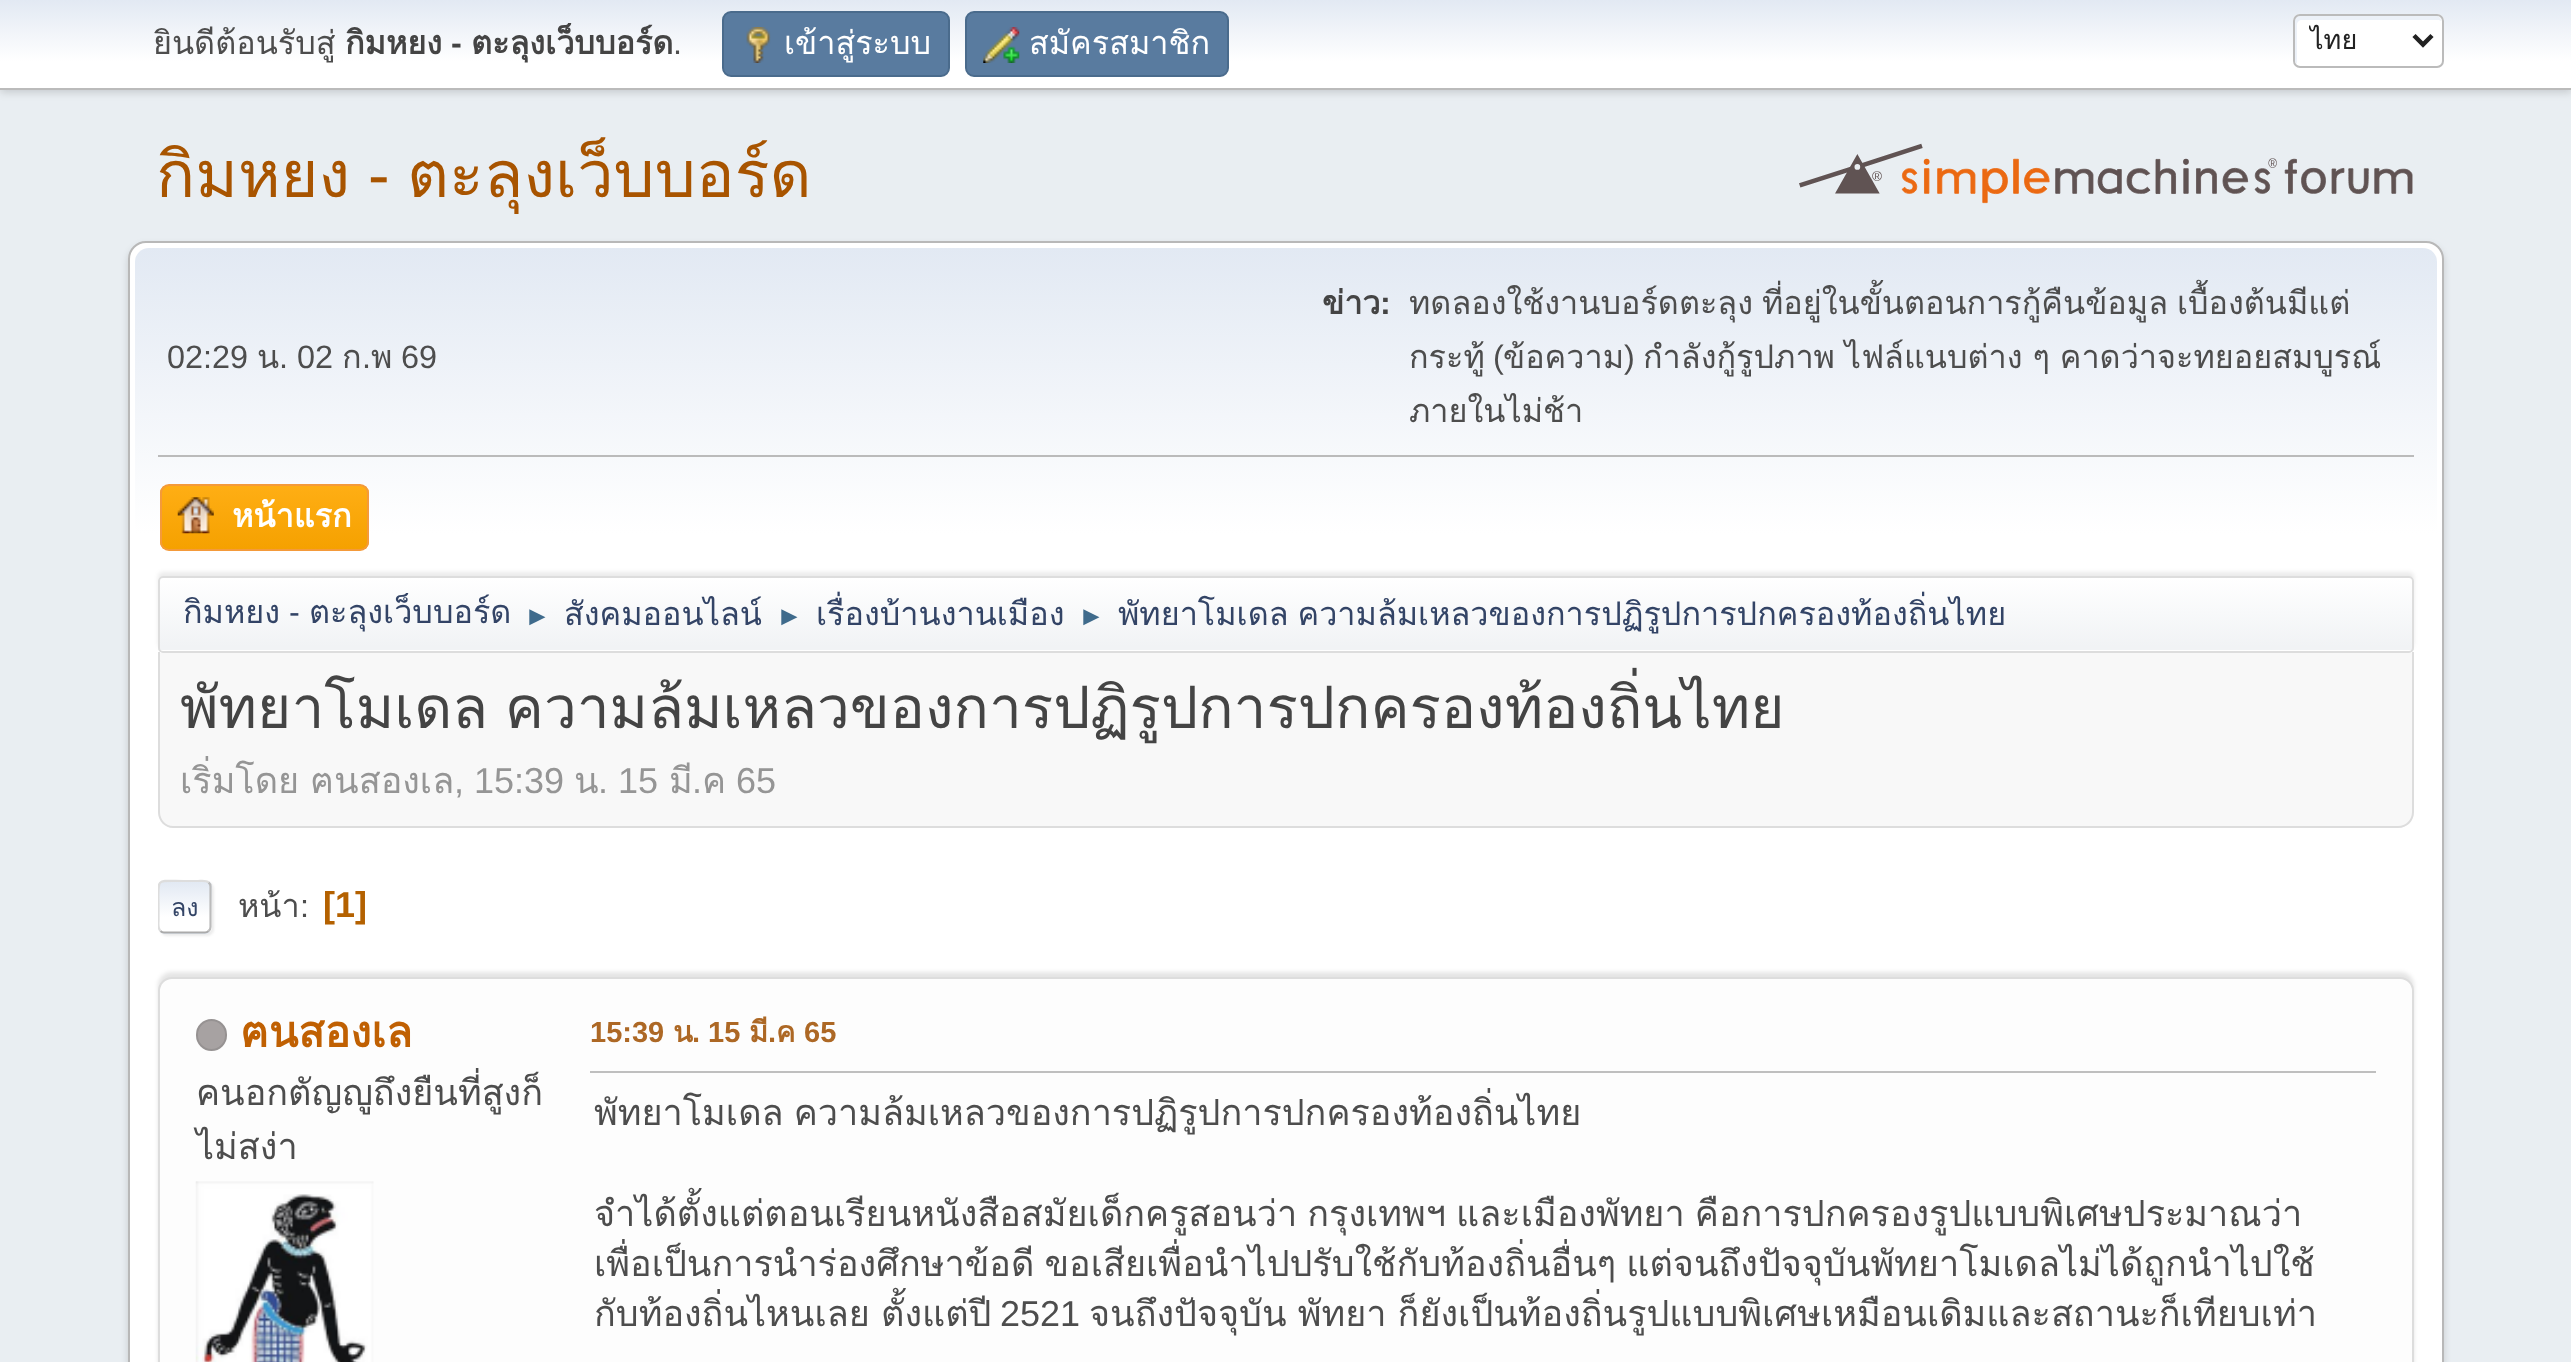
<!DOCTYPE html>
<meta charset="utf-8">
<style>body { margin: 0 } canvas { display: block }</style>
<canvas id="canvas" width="2571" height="1362"></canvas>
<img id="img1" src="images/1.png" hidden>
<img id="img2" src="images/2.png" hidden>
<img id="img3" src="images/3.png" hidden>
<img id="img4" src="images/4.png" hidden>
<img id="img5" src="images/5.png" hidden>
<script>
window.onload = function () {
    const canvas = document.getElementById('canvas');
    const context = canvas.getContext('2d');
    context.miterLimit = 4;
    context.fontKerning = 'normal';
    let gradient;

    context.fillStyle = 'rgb(233, 238, 242)';
    context.fillRect(0, 0, 2571, 1362);
    context.fillStyle = 'rgba(0, 0, 0, 0.16)';
    context.filter = 'blur(4.5px)';
    context.beginPath();
    context.rect(0, 2, 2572, 90);
    context.fill();
    context.filter = 'none';
    gradient = context.createLinearGradient(1286, 0, 1286, 88);
    gradient.addColorStop(0, 'rgb(226, 233, 243)');
    gradient.addColorStop(0.7, 'rgb(255, 255, 255)');
    context.fillStyle = gradient;
    context.fillRect(0, 0, 2571, 88);
    context.fillStyle = 'rgb(187, 187, 187)';
    context.fillRect(0, 88, 2571, 2);
    context.fillStyle = 'rgb(89, 123, 159)';
    context.beginPath();
    context.roundRect(723, 12, 226, 64, 8);
    context.fill();
    context.strokeStyle = 'rgb(74, 107, 140)';
    context.lineWidth = 2;
    context.stroke();
    context.drawImage(document.getElementById('img1'), 746, 27, 25, 36);
    context.beginPath();
    context.roundRect(966, 12, 262, 64, 8);
    context.fill();
    context.stroke();
    context.drawImage(document.getElementById('img2'), 983, 27, 37, 36);
    context.fillStyle = 'rgb(255, 255, 255)';
    context.beginPath();
    context.roundRect(2293, 14, 151, 54, 7);
    context.fill();
    context.fillStyle = 'rgb(236, 241, 248)';
    context.beginPath();
    context.moveTo(2302, 20);
    context.lineTo(2439, 20);
    context.lineTo(2441, 21);
    context.bezierCurveTo(2441, 18, 2439, 16, 2436, 16);
    context.lineTo(2300, 16);
    context.bezierCurveTo(2297, 16, 2295, 18, 2295, 21);
    context.lineTo(2295, 60);
    context.bezierCurveTo(2295, 62, 2296, 63, 2297, 64);
    context.lineTo(2297, 25);
    context.bezierCurveTo(2297, 22, 2299, 20, 2302, 20);
    context.closePath();
    context.fill();
    context.beginPath();
    context.roundRect(2294, 15, 149, 52, 6);
    context.strokeStyle = 'rgb(187, 187, 187)';
    context.stroke();
    context.beginPath();
    context.moveTo(2414, 35.5);
    context.lineTo(2423, 44.5);
    context.lineTo(2432, 35.5);
    context.strokeStyle = 'rgb(34, 34, 34)';
    context.lineWidth = 4.5;
    context.stroke();
    context.drawImage(document.getElementById('img3'), 1799, 143, 614, 61);
    context.fillStyle = 'rgba(0, 0, 0, 0.14)';
    context.filter = 'blur(3.5px)';
    context.beginPath();
    context.roundRect(128, 245, 2316, 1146, 18);
    context.fill();
    context.filter = 'none';
    context.fillStyle = 'rgb(255, 255, 255)';
    context.beginPath();
    context.roundRect(129, 242, 2314, 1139, 17);
    context.fill();
    context.strokeStyle = 'rgb(184, 184, 184)';
    context.lineWidth = 2;
    context.stroke();
    gradient = context.createLinearGradient(1286, 247, 1286, 657);
    gradient.addColorStop(0, 'rgb(226, 233, 243)');
    gradient.addColorStop(0.7, 'rgb(255, 255, 255)');
    context.fillStyle = gradient;
    context.beginPath();
    context.roundRect(135, 248, 2302, 409, [14, 14, 0, 0]);
    context.fill();
    context.fillStyle = 'rgb(187, 187, 187)';
    context.fillRect(158, 455, 2256, 2);
    context.save();
    context.beginPath();
    context.roundRect(160, 484, 209, 67, 9);
    context.clip();
    gradient = context.createLinearGradient(264, 486, 264, 549);
    gradient.addColorStop(0, 'rgb(255, 174, 20)');
    gradient.addColorStop(1, 'rgb(245, 161, 0)');
    context.fillStyle = gradient;
    context.fillRect(160, 486, 209, 63);
    context.restore();
    context.beginPath();
    context.roundRect(161, 485, 207, 65, 8);
    context.strokeStyle = 'rgb(244, 154, 58)';
    context.stroke();
    context.drawImage(document.getElementById('img4'), 177, 497, 37, 37);
    context.fillStyle = 'rgba(0, 0, 0, 0.08)';
    context.filter = 'blur(2px)';
    context.beginPath();
    context.roundRect(158, 572, 2256, 76, 5);
    context.fill();
    context.filter = 'none';
    context.fillStyle = 'rgb(255, 255, 255)';
    context.beginPath();
    context.roundRect(158, 576, 2256, 77, 5);
    context.fill();
    context.save();
    context.beginPath();
    context.roundRect(158, 576, 2256, 77, 5);
    context.clip();
    gradient = context.createLinearGradient(1286, 578, 1286, 650);
    gradient.addColorStop(0, 'rgb(255, 255, 255)');
    gradient.addColorStop(0.95, 'rgb(241, 243, 245)');
    context.fillStyle = gradient;
    context.fillRect(158, 578, 2256, 72);
    context.restore();
    context.beginPath();
    context.roundRect(159, 577, 2254, 75, 4);
    context.strokeStyle = 'rgb(221, 221, 221)';
    context.stroke();
    context.fillStyle = 'rgb(248, 248, 248)';
    context.beginPath();
    context.roundRect(158, 653, 2256, 175, [0, 0, 16, 16]);
    context.fill();
    context.fillStyle = 'rgb(221, 221, 221)';
    context.beginPath();
    context.moveTo(158, 652);
    context.lineTo(2414, 652);
    context.lineTo(2414, 812);
    context.bezierCurveTo(2414, 821, 2407, 828, 2398, 828);
    context.lineTo(173, 828);
    context.bezierCurveTo(165, 828, 158, 821, 158, 812);
    context.closePath();
    context.moveTo(160, 652);
    context.lineTo(2412, 652);
    context.lineTo(2412, 812);
    context.bezierCurveTo(2412, 820, 2406, 826, 2398, 826);
    context.lineTo(173, 826);
    context.bezierCurveTo(166, 826, 160, 820, 160, 812);
    context.closePath();
    context.fill('evenodd');
    context.fillStyle = 'rgba(221, 221, 221, 0.57)';
    context.filter = 'blur(1px)';
    context.beginPath();
    context.roundRect(160, 882, 54, 54, 7);
    context.fill();
    context.filter = 'none';
    context.save();
    context.beginPath();
    context.roundRect(158, 880, 54, 54, 7);
    context.clip();
    gradient = context.createLinearGradient(185, 882, 185, 932);
    gradient.addColorStop(0, 'rgb(226, 233, 243)');
    gradient.addColorStop(0.7, 'rgb(255, 255, 255)');
    context.fillStyle = gradient;
    context.fillRect(158, 882, 54, 50);
    gradient = context.createLinearGradient(185, 932, 185, 981);
    gradient.addColorStop(0, 'rgb(226, 233, 243)');
    gradient.addColorStop(0.7, 'rgb(255, 255, 255)');
    context.fillStyle = gradient;
    context.fillRect(158, 932, 54, 2);
    context.restore();
    context.beginPath();
    context.moveTo(208.5, 882.5);
    context.bezierCurveTo(210, 883.5, 210.5, 885, 210.5, 886.5);
    context.lineTo(210.5, 927);
    context.bezierCurveTo(210.5, 928.5, 210, 930, 208.5, 931);
    context.strokeStyle = 'rgb(187, 187, 187)';
    context.lineWidth = 2.2;
    context.stroke();
    context.beginPath();
    context.moveTo(208.5, 931);
    context.bezierCurveTo(207.5, 932, 206, 932.5, 205, 932.5);
    context.lineTo(164, 932.5);
    context.bezierCurveTo(163, 932.5, 161.5, 932, 160.5, 931);
    context.strokeStyle = 'rgb(170, 170, 170)';
    context.stroke();
    context.save();
    context.beginPath();
    context.rect(158, 862, 2256, 88);
    context.clip();
    context.beginPath();
    context.moveTo(160.5, 931);
    context.bezierCurveTo(157.5, 928.5, 158.5, 923.5, 158.5, 920);
    context.lineTo(158.5, 907);
    context.bezierCurveTo(158.5, 876.5, 154.5, 881, 184.5, 881);
    context.lineTo(198, 881);
    context.bezierCurveTo(201, 881, 206, 880, 208.5, 882.5);
    context.strokeStyle = 'rgb(221, 221, 221)';
    context.stroke();
    context.restore();
    context.fillStyle = 'rgba(0, 0, 0, 0.1)';
    context.filter = 'blur(2px)';
    context.beginPath();
    context.roundRect(158, 972, 2256, 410, 14);
    context.fill();
    context.filter = 'none';
    context.fillStyle = 'rgb(253, 253, 253)';
    context.beginPath();
    context.roundRect(159, 978, 2254, 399, 13);
    context.fill();
    context.strokeStyle = 'rgb(221, 221, 221)';
    context.lineWidth = 2;
    context.stroke();
    context.fillStyle = 'rgb(167, 162, 162)';
    context.beginPath();
    context.roundRect(197, 1020, 29, 30, 14.5);
    context.fill();
    context.strokeStyle = 'rgb(150, 146, 146)';
    context.stroke();
    context.drawImage(document.getElementById('img5'), 195, 1181, 179, 181);
    context.fillStyle = 'rgb(191, 191, 191)';
    context.fillRect(590, 1071, 1786, 2);
    context.font = '32.4px Loma';
    context.fillStyle = 'rgb(77, 77, 77)';
    context.fillText('ยินดีต้อนรับสู่', 153, 54);
    context.font = 'bold 32.4px Loma';
    context.fillStyle = 'rgb(68, 68, 68)';
    context.fillText('กิมหยง', 345, 54);
    context.font = 'bold 32.4px Liberation Sans';
    context.fillText('-', 451, 54);
    context.font = 'bold 32.4px Loma';
    context.fillText('ตะลุงเว็บบอร์ด', 471, 54);
    context.font = '32.4px Liberation Sans';
    context.fillStyle = 'rgb(77, 77, 77)';
    context.fillText('.', 673, 54);
    context.font = '32.4px Loma';
    context.fillStyle = 'rgb(255, 255, 255)';
    context.fillText('เข้าสู่ระบบ', 784, 54);
    context.fillText('สมัครสมาชิก', 1029, 54);
    context.save();
    context.beginPath();
    context.rect(2309, 23, 90, 36);
    context.clip();
    context.font = '27px Loma';
    context.fillStyle = 'rgb(34, 34, 34)';
    context.fillText('ไทย', 2310, 49);
    context.restore();
    context.font = '64.75px Loma';
    context.fillStyle = 'rgb(168, 84, 0)';
    context.fillText('กิมหยง', 156, 197);
    context.font = '64.75px Liberation Sans';
    context.fillText('-', 368, 197);
    context.font = '64.75px Loma';
    context.fillText('ตะลุงเว็บบอร์ด', 407, 197);
    context.font = '32.4px Liberation Sans';
    context.fillStyle = 'rgb(77, 77, 77)';
    context.fillText('02:29', 167, 368);
    context.font = '32.4px Loma';
    context.fillText('น', 257, 368);
    context.font = '32.4px Liberation Sans';
    context.fillText('. 02', 279, 368);
    context.font = '32.4px Loma';
    context.fillText('ก', 342, 368);
    context.font = '32.4px Liberation Sans';
    context.fillText('.', 362, 368);
    context.font = '32.4px Loma';
    context.fillText('พ', 371, 368);
    context.font = '32.4px Liberation Sans';
    context.fillText('69', 401, 368);
    context.font = 'bold 32.4px Loma';
    context.fillStyle = 'rgb(68, 68, 68)';
    context.fillText('ข่าว', 1322, 314);
    context.font = 'bold 32.4px Liberation Sans';
    context.fillText(':', 1380, 314);
    context.wordSpacing = '-2px';
    context.font = '32.4px Loma';
    context.fillStyle = 'rgb(77, 77, 77)';
    context.fillText('ทดลองใช้งานบอร์ดตะลุง ที่อยู่ในขั้นตอนการกู้คืนข้อมูล เบื้องต้นมีแต่', 1409, 314);
    context.wordSpacing = '0px';
    context.fillText('กระทู้', 1409, 368);
    context.wordSpacing = '-1px';
    context.fillText('กำลังกู้รูปภาพ ไฟล์แนบต่าง ๆ คาดว่าจะทยอยสมบูรณ์', 1643, 368);
    context.wordSpacing = '0px';
    context.font = '32.4px Liberation Sans';
    context.fillText('(', 1493, 368);
    context.font = '32.4px Loma';
    context.fillText('ข้อความ', 1503, 368);
    context.font = '32.4px Liberation Sans';
    context.fillText(')', 1624, 368);
    context.font = '32.4px Loma';
    context.fillText('ภายในไม่ช้า', 1409, 422);
    context.font = 'bold 32.4px Loma';
    context.fillStyle = 'rgb(255, 255, 255)';
    context.fillText('หน้าแรก', 232, 527);
    context.font = '32.4px Loma';
    context.fillStyle = 'rgb(51, 68, 102)';
    context.fillText('กิมหยง', 183, 623);
    context.font = '32.4px Liberation Sans';
    context.fillText('-', 289, 623);
    context.font = '32.4px Loma';
    context.fillText('ตะลุงเว็บบอร์ด', 309, 623);
    context.font = '27px Liberation Sans';
    context.fillStyle = 'rgb(63, 107, 140)';
    context.fillText('►', 524, 625);
    context.font = '32.4px Loma';
    context.fillStyle = 'rgb(51, 68, 102)';
    context.fillText('สังคมออนไลน์', 564, 625);
    context.font = '27px Liberation Sans';
    context.fillStyle = 'rgb(63, 107, 140)';
    context.fillText('►', 776, 625);
    context.font = '32.4px Loma';
    context.fillStyle = 'rgb(51, 68, 102)';
    context.fillText('เรื่องบ้านงานเมือง', 816, 625);
    context.font = '27px Liberation Sans';
    context.fillStyle = 'rgb(63, 107, 140)';
    context.fillText('►', 1078, 625);
    context.wordSpacing = '-2px';
    context.font = '32.4px Loma';
    context.fillStyle = 'rgb(51, 68, 102)';
    context.fillText('พัทยาโมเดล ความล้มเหลวของการปฏิรูปการปกครองท้องถิ่นไทย', 1118, 625);
    context.save();
    context.beginPath();
    context.roundRect(160, 653, 2252, 173, [0, 0, 14, 14]);
    context.clip();
    context.wordSpacing = '-3px';
    context.font = '58.5px Loma';
    context.fillStyle = 'rgb(68, 68, 68)';
    context.fillText('พัทยาโมเดล ความล้มเหลวของการปฏิรูปการปกครองท้องถิ่นไทย', 180, 728);
    context.restore();
    context.wordSpacing = '0px';
    context.font = '36px Loma';
    context.fillStyle = 'rgb(149, 149, 149)';
    context.fillText('เริ่มโดย', 180, 793);
    context.fillText('ฅนสองเล', 310, 793);
    context.font = '36px Liberation Sans';
    context.fillText(', 15:39', 454, 793);
    context.font = '36px Loma';
    context.fillText('น', 574, 793);
    context.font = '36px Liberation Sans';
    context.fillText('. 15', 598, 793);
    context.font = '36px Loma';
    context.fillText('มี', 669, 793);
    context.font = '36px Liberation Sans';
    context.fillText('.', 692, 793);
    context.font = '36px Loma';
    context.fillText('ค', 702, 793);
    context.font = '36px Liberation Sans';
    context.fillText('65', 736, 793);
    context.font = '25px Loma';
    context.fillStyle = 'rgb(51, 68, 102)';
    context.fillText('ลง', 171, 916);
    context.font = '32.4px Loma';
    context.fillStyle = 'rgb(77, 77, 77)';
    context.fillText('หน้า', 238, 917);
    context.font = '32.4px Liberation Sans';
    context.fillText(':', 300, 917);
    context.font = 'bold 36px Liberation Sans';
    context.fillStyle = 'rgb(180, 97, 0)';
    context.fillText('[1]', 323, 917);
    context.font = 'bold 43px Loma';
    context.fillStyle = 'rgb(192, 96, 2)';
    context.fillText('ฅนสองเล', 240, 1047);
    context.font = '36px Loma';
    context.fillStyle = 'rgb(77, 77, 77)';
    context.fillText('คนอกตัญญูถึงยืนที่สูงก็', 196, 1105);
    context.fillText('ไม่สง่า', 196, 1159);
    context.font = 'bold 29px Liberation Sans';
    context.fillStyle = 'rgb(173, 104, 37)';
    context.fillText('15:39', 590, 1042);
    context.font = 'bold 29px Loma';
    context.fillText('น', 673, 1042);
    context.font = 'bold 29px Liberation Sans';
    context.fillText('. 15', 692, 1042);
    context.font = 'bold 29px Loma';
    context.fillText('มี', 749, 1042);
    context.font = 'bold 29px Liberation Sans';
    context.fillText('.', 768, 1042);
    context.font = 'bold 29px Loma';
    context.fillText('ค', 776, 1042);
    context.font = 'bold 29px Liberation Sans';
    context.fillText('65', 804, 1042);
    context.save();
    context.beginPath();
    context.rect(590, 1069, 1786, 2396);
    context.clip();
    context.wordSpacing = '-2px';
    context.font = '36px Loma';
    context.fillStyle = 'rgb(77, 77, 77)';
    context.fillText('พัทยาโมเดล ความล้มเหลวของการปฏิรูปการปกครองท้องถิ่นไทย', 594, 1125);
    context.fillText('จำได้ตั้งแต่ตอนเรียนหนังสือสมัยเด็กครูสอนว่า กรุงเทพฯ และเมืองพัทยา คือการปกครองรูปแบบพิเศษประมาณว่า', 594, 1226);
    context.fillText('เพื่อเป็นการนำร่องศึกษาข้อดี ขอเสียเพื่อนำไปปรับใช้กับท้องถิ่นอื่นๆ แต่จนถึงปัจจุบันพัทยาโมเดลไม่ได้ถูกนำไปใช้', 594, 1276);
    context.wordSpacing = '-1px';
    context.fillText('กับท้องถิ่นไหนเลย ตั้งแต่ปี', 594, 1326);
    context.restore();
    context.font = '36px Liberation Sans';
    context.fillStyle = 'rgb(77, 77, 77)';
    context.fillText('2521', 1000, 1326);
    context.wordSpacing = '-1px';
    context.font = '36px Loma';
    context.fillText('จนถึงปัจจุบัน พัทยา ก็ยังเป็นท้องถิ่นรูปแบบพิเศษเหมือนเดิมและสถานะก็เทียบเท่า', 1089, 1326);
};
</script>
